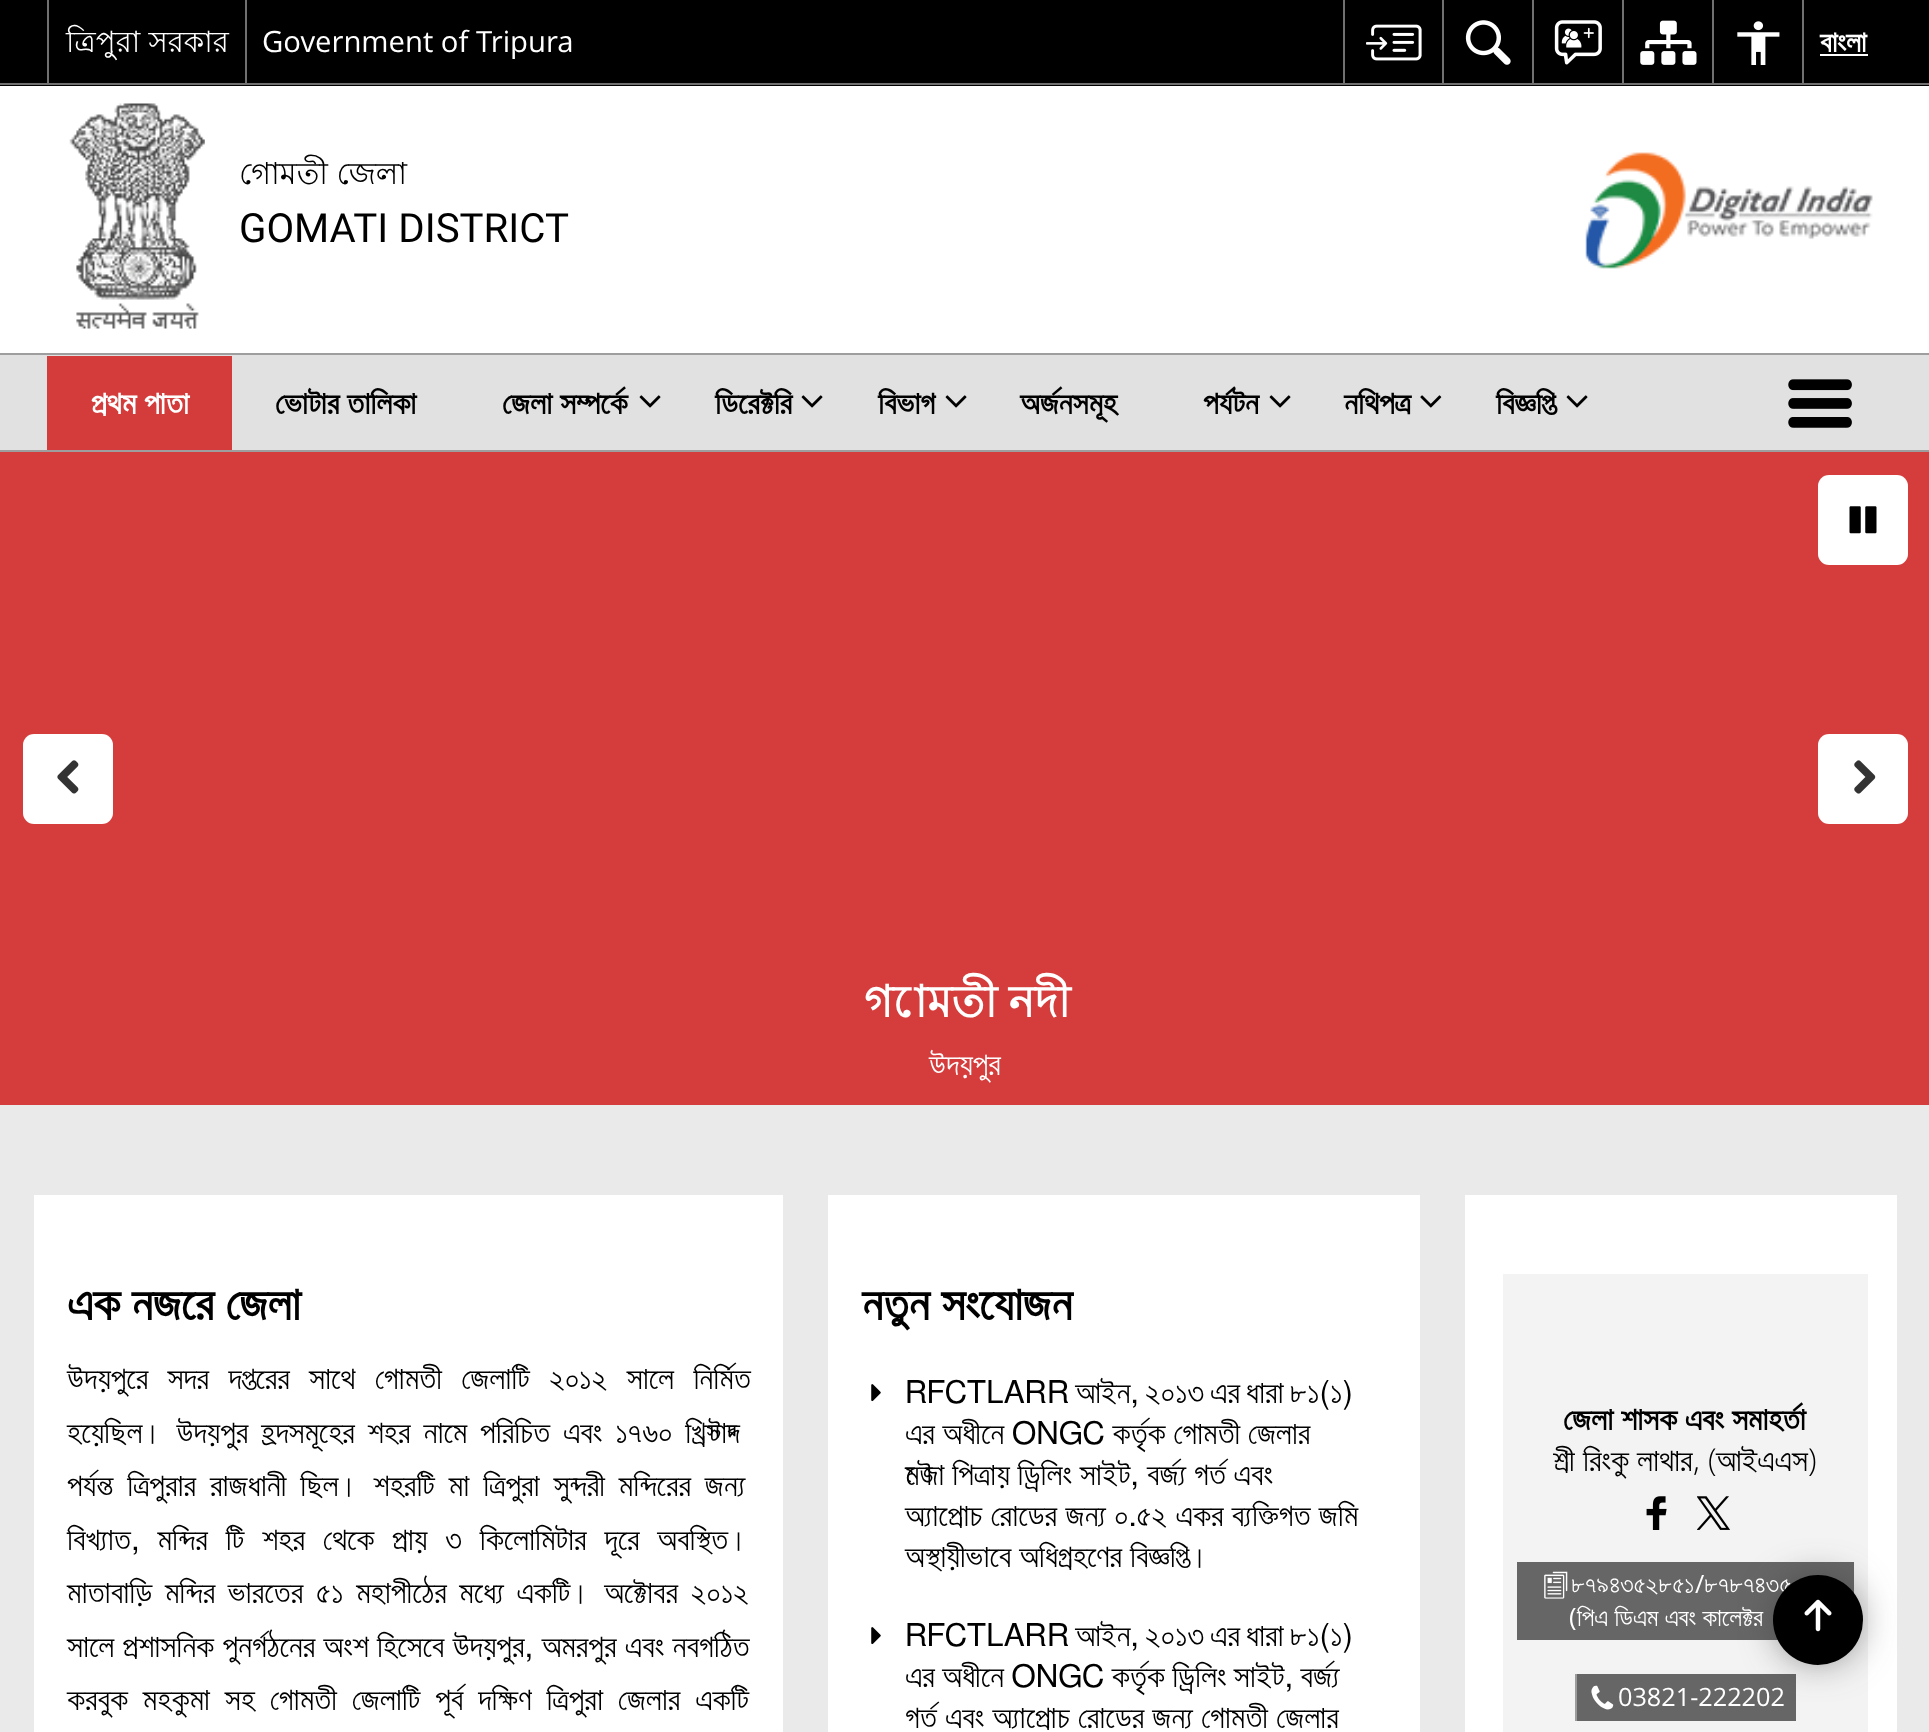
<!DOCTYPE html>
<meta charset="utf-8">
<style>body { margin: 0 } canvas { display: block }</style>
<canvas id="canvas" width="1929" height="1732"></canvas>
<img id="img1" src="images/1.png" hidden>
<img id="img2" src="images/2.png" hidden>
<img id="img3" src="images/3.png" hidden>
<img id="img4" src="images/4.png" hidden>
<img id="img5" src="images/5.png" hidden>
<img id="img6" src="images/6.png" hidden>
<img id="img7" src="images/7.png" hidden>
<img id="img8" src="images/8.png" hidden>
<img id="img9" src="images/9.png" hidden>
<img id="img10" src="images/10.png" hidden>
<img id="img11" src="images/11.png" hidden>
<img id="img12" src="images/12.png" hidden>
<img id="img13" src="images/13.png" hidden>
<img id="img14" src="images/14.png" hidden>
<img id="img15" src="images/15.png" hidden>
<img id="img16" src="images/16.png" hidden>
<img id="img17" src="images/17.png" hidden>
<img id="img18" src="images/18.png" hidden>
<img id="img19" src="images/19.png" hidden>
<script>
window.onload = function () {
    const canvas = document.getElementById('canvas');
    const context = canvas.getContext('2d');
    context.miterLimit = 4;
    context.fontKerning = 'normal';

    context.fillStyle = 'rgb(255, 255, 255)';
    context.fillRect(0, 0, 1929, 1732);
    context.fillStyle = 'rgb(0, 0, 0)';
    context.fillRect(0, 0, 1929, 86);
    context.fillStyle = 'rgb(112, 112, 112)';
    context.fillRect(0, 83, 1929, 2);
    context.fillRect(47, 0, 2, 83);
    context.fillRect(245, 0, 2, 83);
    context.fillRect(1343, 0, 2, 83);
    context.drawImage(document.getElementById('img1'), 1366, 24, 56, 37);
    context.fillRect(1442, 0, 2, 83);
    context.drawImage(document.getElementById('img2'), 1465, 20, 46, 45);
    context.fillRect(1532, 0, 2, 83);
    context.drawImage(document.getElementById('img3'), 1554, 20, 48, 45);
    context.fillRect(1622, 0, 2, 83);
    context.drawImage(document.getElementById('img4'), 1640, 20, 57, 45);
    context.fillRect(1712, 0, 2, 83);
    context.drawImage(document.getElementById('img5'), 1737, 21, 43, 44);
    context.fillRect(1802, 0, 2, 83);
    context.fillStyle = 'rgb(255, 255, 255)';
    context.fillRect(1820, 54, 48, 2);
    context.drawImage(document.getElementById('img6'), 69, 103, 136, 226);
    context.drawImage(document.getElementById('img7'), 1585, 152, 288, 117);
    context.fillStyle = 'rgb(225, 225, 225)';
    context.fillRect(0, 355, 1929, 95);
    context.fillStyle = 'rgb(158, 158, 158)';
    context.fillRect(0, 353, 1929, 2);
    context.fillRect(0, 450, 1929, 2);
    context.fillStyle = 'rgb(212, 60, 60)';
    context.fillRect(47, 356, 185, 94);
    context.drawImage(document.getElementById('img8'), 639, 395, 22, 13);
    context.drawImage(document.getElementById('img8'), 801, 395, 22, 13);
    context.drawImage(document.getElementById('img8'), 945, 395, 22, 13);
    context.drawImage(document.getElementById('img8'), 1269, 395, 22, 13);
    context.drawImage(document.getElementById('img9'), 1420, 395, 22, 13);
    context.drawImage(document.getElementById('img8'), 1566, 395, 22, 13);
    context.drawImage(document.getElementById('img10'), 1788, 379, 64, 49);
    context.fillStyle = 'rgb(213, 61, 60)';
    context.fillRect(0, 452, 1929, 653);
    context.fillStyle = 'rgb(255, 255, 255)';
    context.beginPath();
    context.roundRect(1818, 475, 90, 90, 11);
    context.fill();
    context.drawImage(document.getElementById('img11'), 1849, 506, 28, 28);
    context.beginPath();
    context.roundRect(23, 734, 90, 90, 11);
    context.fill();
    context.drawImage(document.getElementById('img12'), 57, 760, 22, 34);
    context.beginPath();
    context.roundRect(1818, 734, 90, 90, 11);
    context.fill();
    context.drawImage(document.getElementById('img13'), 1854, 760, 22, 34);
    context.fillStyle = 'rgb(234, 234, 234)';
    context.fillRect(0, 1105, 1929, 627);
    context.fillStyle = 'rgb(255, 255, 255)';
    context.fillRect(34, 1195, 749, 537);
    context.fillRect(828, 1195, 592, 537);
    context.drawImage(document.getElementById('img14'), 871, 1384, 10, 18);
    context.drawImage(document.getElementById('img14'), 871, 1627, 10, 18);
    context.fillRect(1465, 1195, 432, 537);
    context.fillStyle = 'rgb(243, 243, 243)';
    context.fillRect(1503, 1274, 365, 458);
    context.drawImage(document.getElementById('img15'), 1646, 1496, 21, 34);
    context.drawImage(document.getElementById('img16'), 1697, 1496, 33, 34);
    context.fillStyle = 'rgb(102, 102, 102)';
    context.fillRect(1517, 1562, 337, 78);
    context.drawImage(document.getElementById('img17'), 1544, 1571, 24, 28);
    context.fillRect(1577, 1674, 219, 47);
    context.fillStyle = 'rgb(158, 155, 155)';
    context.fillRect(1575, 1674, 2, 47);
    context.drawImage(document.getElementById('img18'), 1591, 1685, 23, 25);
    context.fillStyle = 'rgb(60, 60, 60)';
    context.filter = 'blur(21.5px)';
    context.beginPath();
    context.roundRect(1784, 1586, 68, 68, 34);
    context.fill();
    context.filter = 'none';
    context.font = '29.25px Lohit Bengali';
    context.fillStyle = 'rgb(255, 255, 255)';
    context.fillText('ত্রিপুরা সরকার', 66, 52);
    context.font = '29.25px Open Sans';
    context.fillText('Government of Tripura', 262, 52);
    context.font = 'bold 29.25px FreeSans';
    context.fillText('বাংলা', 1820, 52);
    context.font = '30.25px Lohit Bengali';
    context.fillStyle = 'rgb(0, 0, 0)';
    context.fillText('গোমতী জেলা', 239, 184);
    context.font = '40.25px Roboto';
    context.fillText('GOMATI DISTRICT', 239, 242);
    context.font = 'bold 31.5px FreeSans';
    context.fillStyle = 'rgb(255, 255, 255)';
    context.fillText('প্রথম পাতা', 91, 414);
    context.fillStyle = 'rgb(0, 0, 0)';
    context.fillText('ভোটার তালিকা', 275, 414);
    context.fillText('জেলা সম্পর্কে', 502, 414);
    context.fillText('ডিরেক্টরি', 715, 414);
    context.fillText('বিভাগ', 878, 414);
    context.fillText('অর্জনসমূহ', 1020, 414);
    context.fillText('পর্যটন', 1203, 414);
    context.fillText('নথিপত্র', 1344, 414);
    context.fillText('বিজ্ঞপ্তি', 1496, 414);
    context.wordSpacing = '-1px';
    context.font = 'bold 44px Lohit Bengali';
    context.fillStyle = 'rgb(255, 255, 255)';
    context.fillText('গোমতী নদী', 864, 1017);
    context.wordSpacing = '0px';
    context.font = '31.5px FreeSans';
    context.fillText('উদয়পুর', 929, 1075);
    context.font = 'bold 47.25px FreeSans';
    context.fillStyle = 'rgb(0, 0, 0)';
    context.fillText('এক নজরে জেলা', 67, 1320);
    context.wordSpacing = '11.5px';
    context.font = '31.5px FreeSans';
    context.fillText('উদয়পুরে সদর দপ্তরের সাথে গোমতী জেলাটি ২০১২ সালে নির্মিত', 67, 1389);
    context.wordSpacing = '5px';
    context.fillText('হয়েছিল। উদয়পুর হ্রদসমূহের শহর নামে পরিচিত এবং ১৭৬০ খ্রিস্টাব্দ', 67, 1443);
    context.wordSpacing = '6px';
    context.fillText('পর্যন্ত ত্রিপুরার রাজধানী ছিল। শহরটি মা ত্রিপুরা সুন্দরী মন্দিরের জন্য', 67, 1496);
    context.wordSpacing = '10px';
    context.fillText('বিখ্যাত, মন্দির টি শহর থেকে প্রায় ৩ কিলোমিটার দূরে অবস্থিত।', 67, 1550);
    context.wordSpacing = '4.75px';
    context.fillText('মাতাবাড়ি মন্দির ভারতের ৫১ মহাপীঠের মধ্যে একটি। অক্টোবর ২০১২', 67, 1603);
    context.wordSpacing = '0.5px';
    context.fillText('সালে প্রশাসনিক পুনর্গঠনের অংশ হিসেবে উদয়পুর, অমরপুর এবং নবগঠিত', 67, 1657);
    context.wordSpacing = '7px';
    context.fillText('করবুক মহকুমা সহ গোমতী জেলাটি পূর্ব দক্ষিণ ত্রিপুরা জেলার একটি', 67, 1710);
    context.wordSpacing = '0px';
    context.font = 'bold 47.25px FreeSans';
    context.fillText('নতুন সংযোজন', 862, 1320);
    context.wordSpacing = '-2px';
    context.font = '31.5px FreeSans';
    context.fillText('RFCTLARR আইন, ২০১৩ এর ধারা ৮১(১)', 905, 1403);
    context.wordSpacing = '-0.25px';
    context.fillText('এর অধীনে ONGC কর্তৃক গোমতী জেলার', 905, 1444);
    context.wordSpacing = '0px';
    context.fillText('মৌজা পিত্রায় ড্রিলিং সাইট, বর্জ্য গর্ত এবং', 905, 1485);
    context.wordSpacing = '0.5px';
    context.fillText('অ্যাপ্রোচ রোডের জন্য ০.৫২ একর ব্যক্তিগত জমি', 905, 1526);
    context.wordSpacing = '0px';
    context.fillText('অস্থায়ীভাবে অধিগ্রহণের বিজ্ঞপ্তি।', 905, 1567);
    context.wordSpacing = '-2px';
    context.fillText('RFCTLARR আইন, ২০১৩ এর ধারা ৮১(১)', 905, 1646);
    context.wordSpacing = '-0.5px';
    context.fillText('এর অধীনে ONGC কর্তৃক ড্রিলিং সাইট, বর্জ্য', 905, 1687);
    context.wordSpacing = '0.25px';
    context.fillText('গর্ত এবং অ্যাপ্রোচ রোডের জন্য গোমতী জেলার', 905, 1728);
    context.wordSpacing = '0px';
    context.font = 'bold 31.5px FreeSans';
    context.fillText('জেলা শাসক এবং সমাহর্তা', 1563, 1430);
    context.font = '31.5px FreeSans';
    context.fillText('শ্রী', 1553, 1471);
    context.fillText('রিংকু', 1583, 1471);
    context.fillText('লাথার', 1637, 1471);
    context.font = '300 31.5px Open Sans';
    context.fillText(', (', 1693, 1471);
    context.font = '31.5px FreeSans';
    context.fillText('আইএএস', 1716, 1471);
    context.font = '300 31.5px Open Sans';
    context.fillText(')', 1808, 1471);
    context.font = '25.25px FreeSans';
    context.fillStyle = 'rgb(255, 255, 255)';
    context.fillText('৮৭৯৪৩৫২৮৫১', 1571, 1593);
    context.font = '25.25px Open Sans';
    context.fillText('/', 1695, 1593);
    context.font = '25.25px FreeSans';
    context.fillText('৮৭৮৭৪৩৫', 1704, 1593);
    context.font = '25.25px Open Sans';
    context.fillText('(', 1569, 1626);
    context.font = '25.25px FreeSans';
    context.fillText('পিএ ডিএম এবং কালেক্টর', 1577, 1626);
    context.font = '25.25px Open Sans';
    context.fillText('03821-222202', 1618, 1706);
    context.fillStyle = 'rgb(0, 0, 0)';
    context.beginPath();
    context.arc(1818, 1620, 45, 0, 2 * Math.PI);
    context.fill();
    context.drawImage(document.getElementById('img19'), 1804, 1599, 28, 33);
};
</script>
